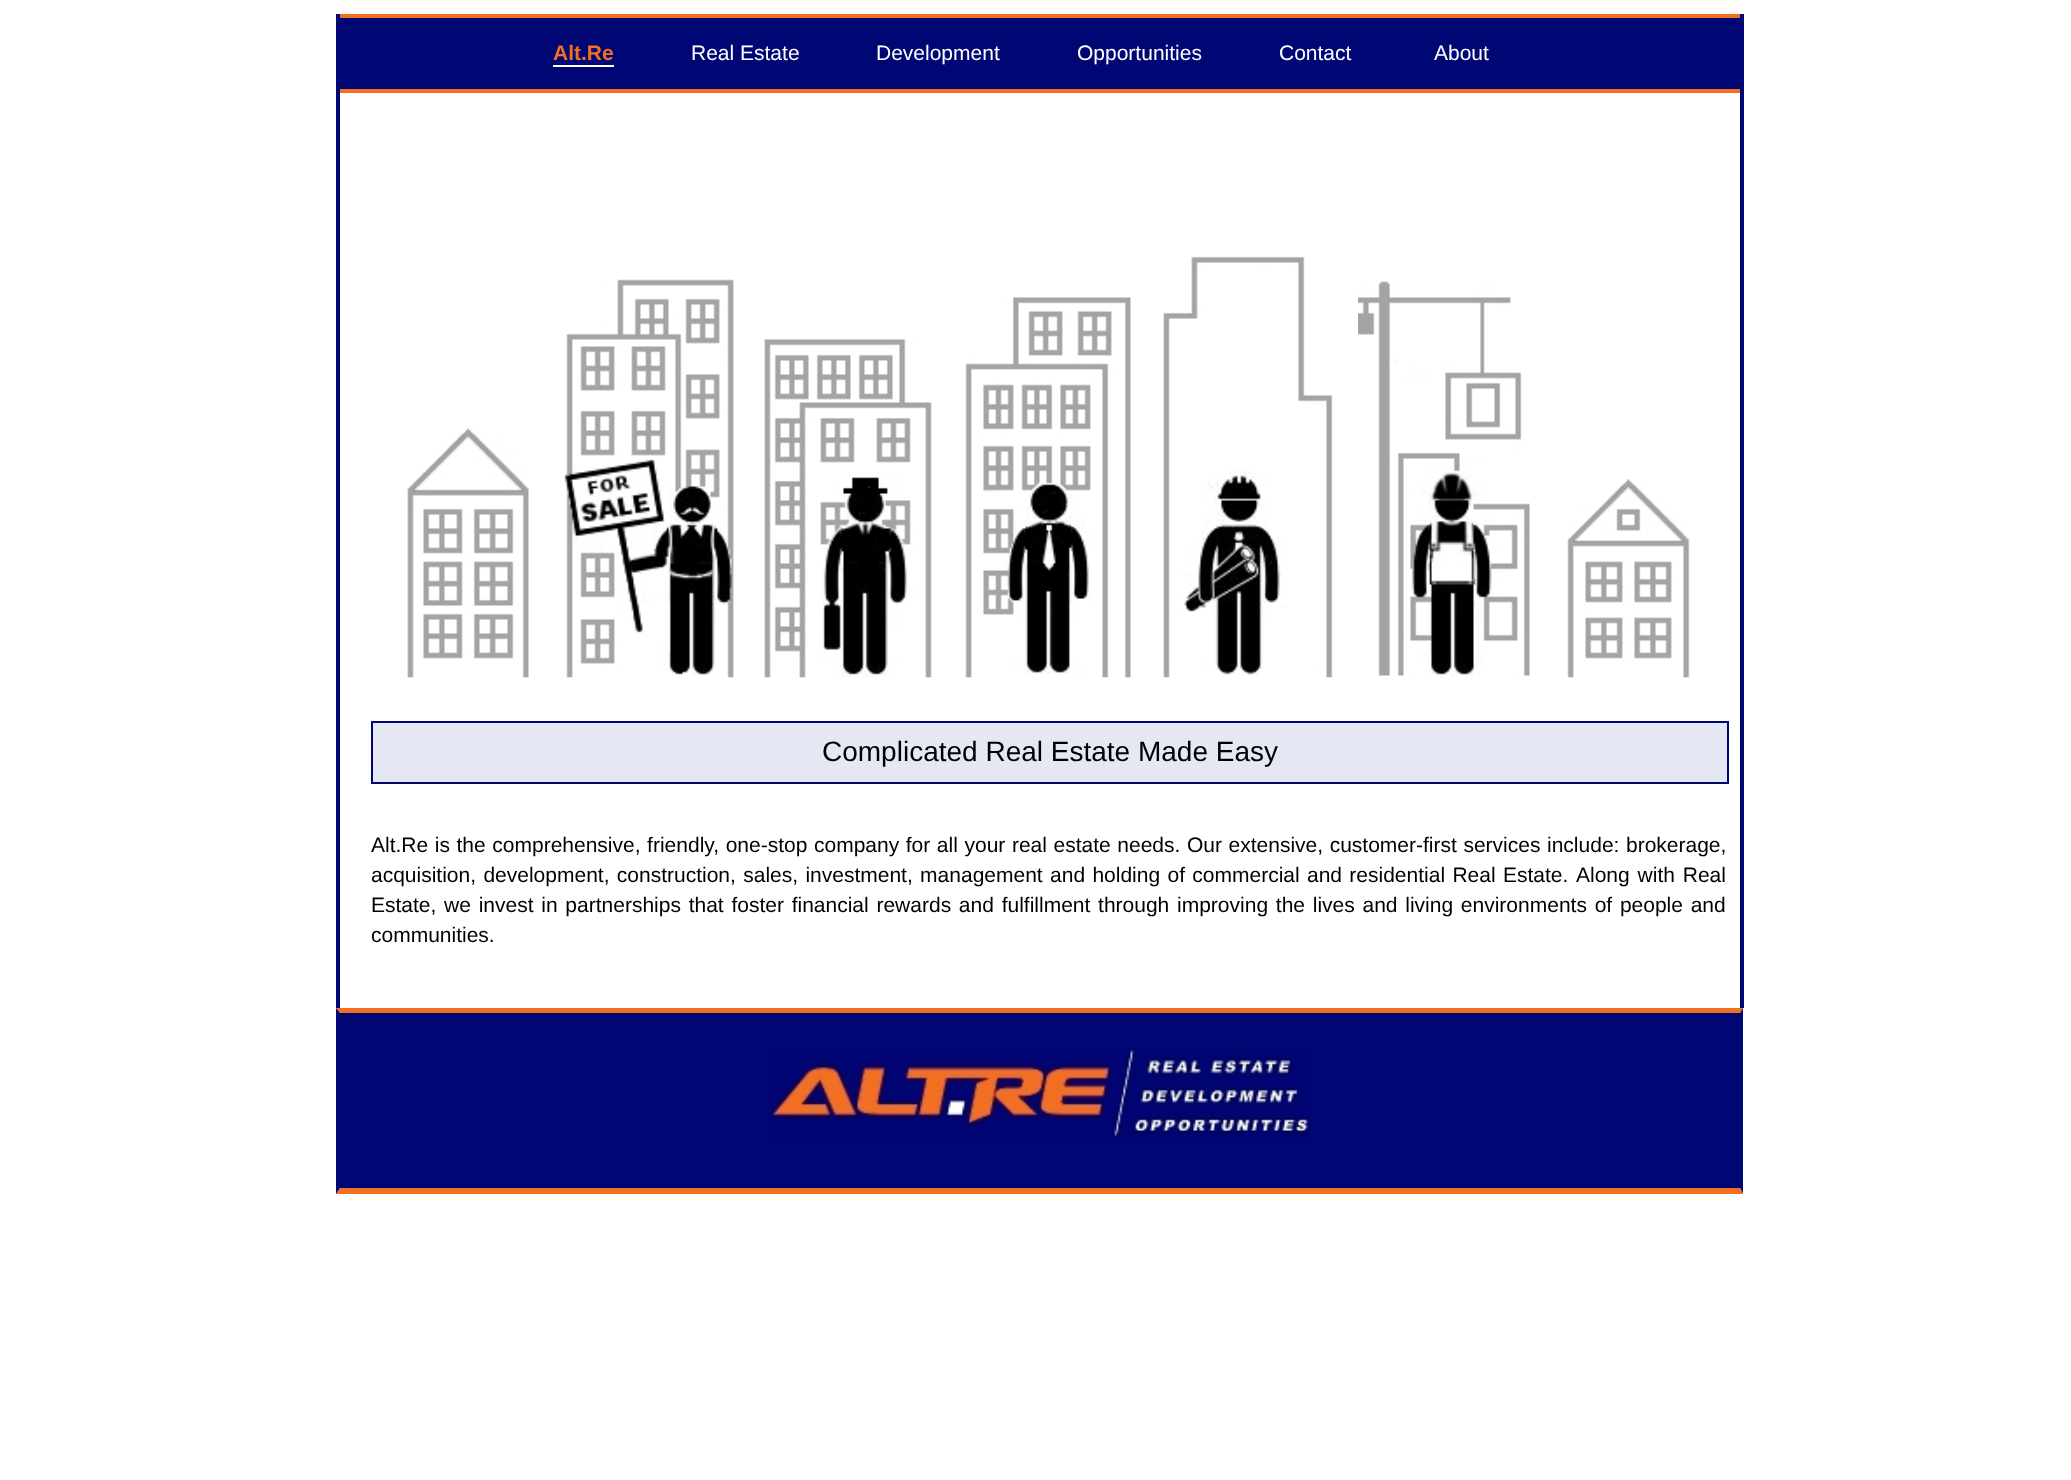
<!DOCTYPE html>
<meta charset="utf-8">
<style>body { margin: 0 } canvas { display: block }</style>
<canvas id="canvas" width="2071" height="1480"></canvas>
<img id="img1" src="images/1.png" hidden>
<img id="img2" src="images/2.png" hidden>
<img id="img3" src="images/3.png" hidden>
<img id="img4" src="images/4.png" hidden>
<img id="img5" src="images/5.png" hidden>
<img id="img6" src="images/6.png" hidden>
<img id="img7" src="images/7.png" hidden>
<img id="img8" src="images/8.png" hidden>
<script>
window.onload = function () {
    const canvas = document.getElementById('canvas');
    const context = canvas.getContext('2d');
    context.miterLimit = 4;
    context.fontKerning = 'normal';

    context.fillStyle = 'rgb(255, 255, 255)';
    context.fillRect(0, 0, 2071, 1480);
    context.fillStyle = 'rgb(0, 6, 115)';
    context.fillRect(1740, 14, 4, 994);
    context.fillRect(336, 14, 4, 994);
    context.fillRect(340, 18, 1400, 71);
    context.fillStyle = 'rgb(243, 112, 34)';
    context.fillRect(340, 14, 1400, 4);
    context.fillRect(340, 89, 1400, 4);
    context.fillStyle = 'rgb(255, 255, 255)';
    context.fillRect(553, 65, 61, 2);
    context.drawImage(document.getElementById('img1'), 407, 428, 122, 250);
    context.drawImage(document.getElementById('img2'), 564, 279, 170, 399);
    context.drawImage(document.getElementById('img3'), 764, 339, 168, 339);
    context.drawImage(document.getElementById('img4'), 965, 297, 166, 381);
    context.drawImage(document.getElementById('img5'), 1163, 256, 170, 422);
    context.drawImage(document.getElementById('img6'), 1358, 281, 172, 395);
    context.drawImage(document.getElementById('img7'), 1567, 479, 123, 199);
    context.fillStyle = 'rgb(229, 232, 243)';
    context.beginPath();
    context.rect(372, 722, 1356, 61);
    context.fill();
    context.strokeStyle = 'rgb(0, 6, 115)';
    context.lineWidth = 2;
    context.stroke();
    context.fillStyle = 'rgb(0, 6, 115)';
    context.fillRect(340, 1013, 1400, 175);
    context.fillStyle = 'rgb(243, 112, 34)';
    context.beginPath();
    context.moveTo(336, 1008);
    context.lineTo(1743, 1008);
    context.lineTo(1740, 1013);
    context.lineTo(340, 1013);
    context.closePath();
    context.fill();
    context.fillStyle = 'rgb(0, 6, 115)';
    context.beginPath();
    context.moveTo(1743, 1008);
    context.lineTo(1743, 1194);
    context.lineTo(1740, 1188);
    context.lineTo(1740, 1013);
    context.closePath();
    context.fill();
    context.fillStyle = 'rgb(243, 112, 34)';
    context.beginPath();
    context.moveTo(1743, 1194);
    context.lineTo(336, 1194);
    context.lineTo(340, 1188);
    context.lineTo(1740, 1188);
    context.closePath();
    context.fill();
    context.fillStyle = 'rgb(0, 6, 115)';
    context.beginPath();
    context.moveTo(336, 1194);
    context.lineTo(336, 1008);
    context.lineTo(340, 1013);
    context.lineTo(340, 1188);
    context.closePath();
    context.fill();
    context.drawImage(document.getElementById('img8'), 770, 1048, 541, 90);
    context.font = 'bold 21px Liberation Sans';
    context.fillStyle = 'rgb(243, 112, 34)';
    context.fillText('Alt.Re', 553, 60);
    context.font = '21px Liberation Sans';
    context.fillStyle = 'rgb(255, 255, 255)';
    context.fillText('Real Estate', 691, 60);
    context.fillText('Development', 876, 60);
    context.fillText('Opportunities', 1077, 60);
    context.fillText('Contact', 1279, 60);
    context.fillText('About', 1434, 60);
    context.font = '28px Liberation Sans';
    context.fillStyle = 'rgb(0, 0, 0)';
    context.fillText('Complicated Real Estate Made Easy', 822, 761);
    context.wordSpacing = '0.75px';
    context.font = '21px Liberation Sans';
    context.fillText('Alt.Re is the comprehensive, friendly, one-stop company for all your real estate needs. Our extensive, customer-first services include: brokerage,', 371, 852);
    context.wordSpacing = '1.5px';
    context.fillText('acquisition, development, construction, sales, investment, management and holding of commercial and residential Real Estate.', 371, 882);
    context.wordSpacing = '2px';
    context.fillText('Along with Real', 1576, 882);
    context.wordSpacing = '1.9px';
    context.fillText('Estate, we invest in partnerships that foster financial rewards and fulfillment through improving the lives and living environments of people and', 371, 912);
    context.wordSpacing = '0px';
    context.fillText('communities.', 371, 942);
};
</script>
